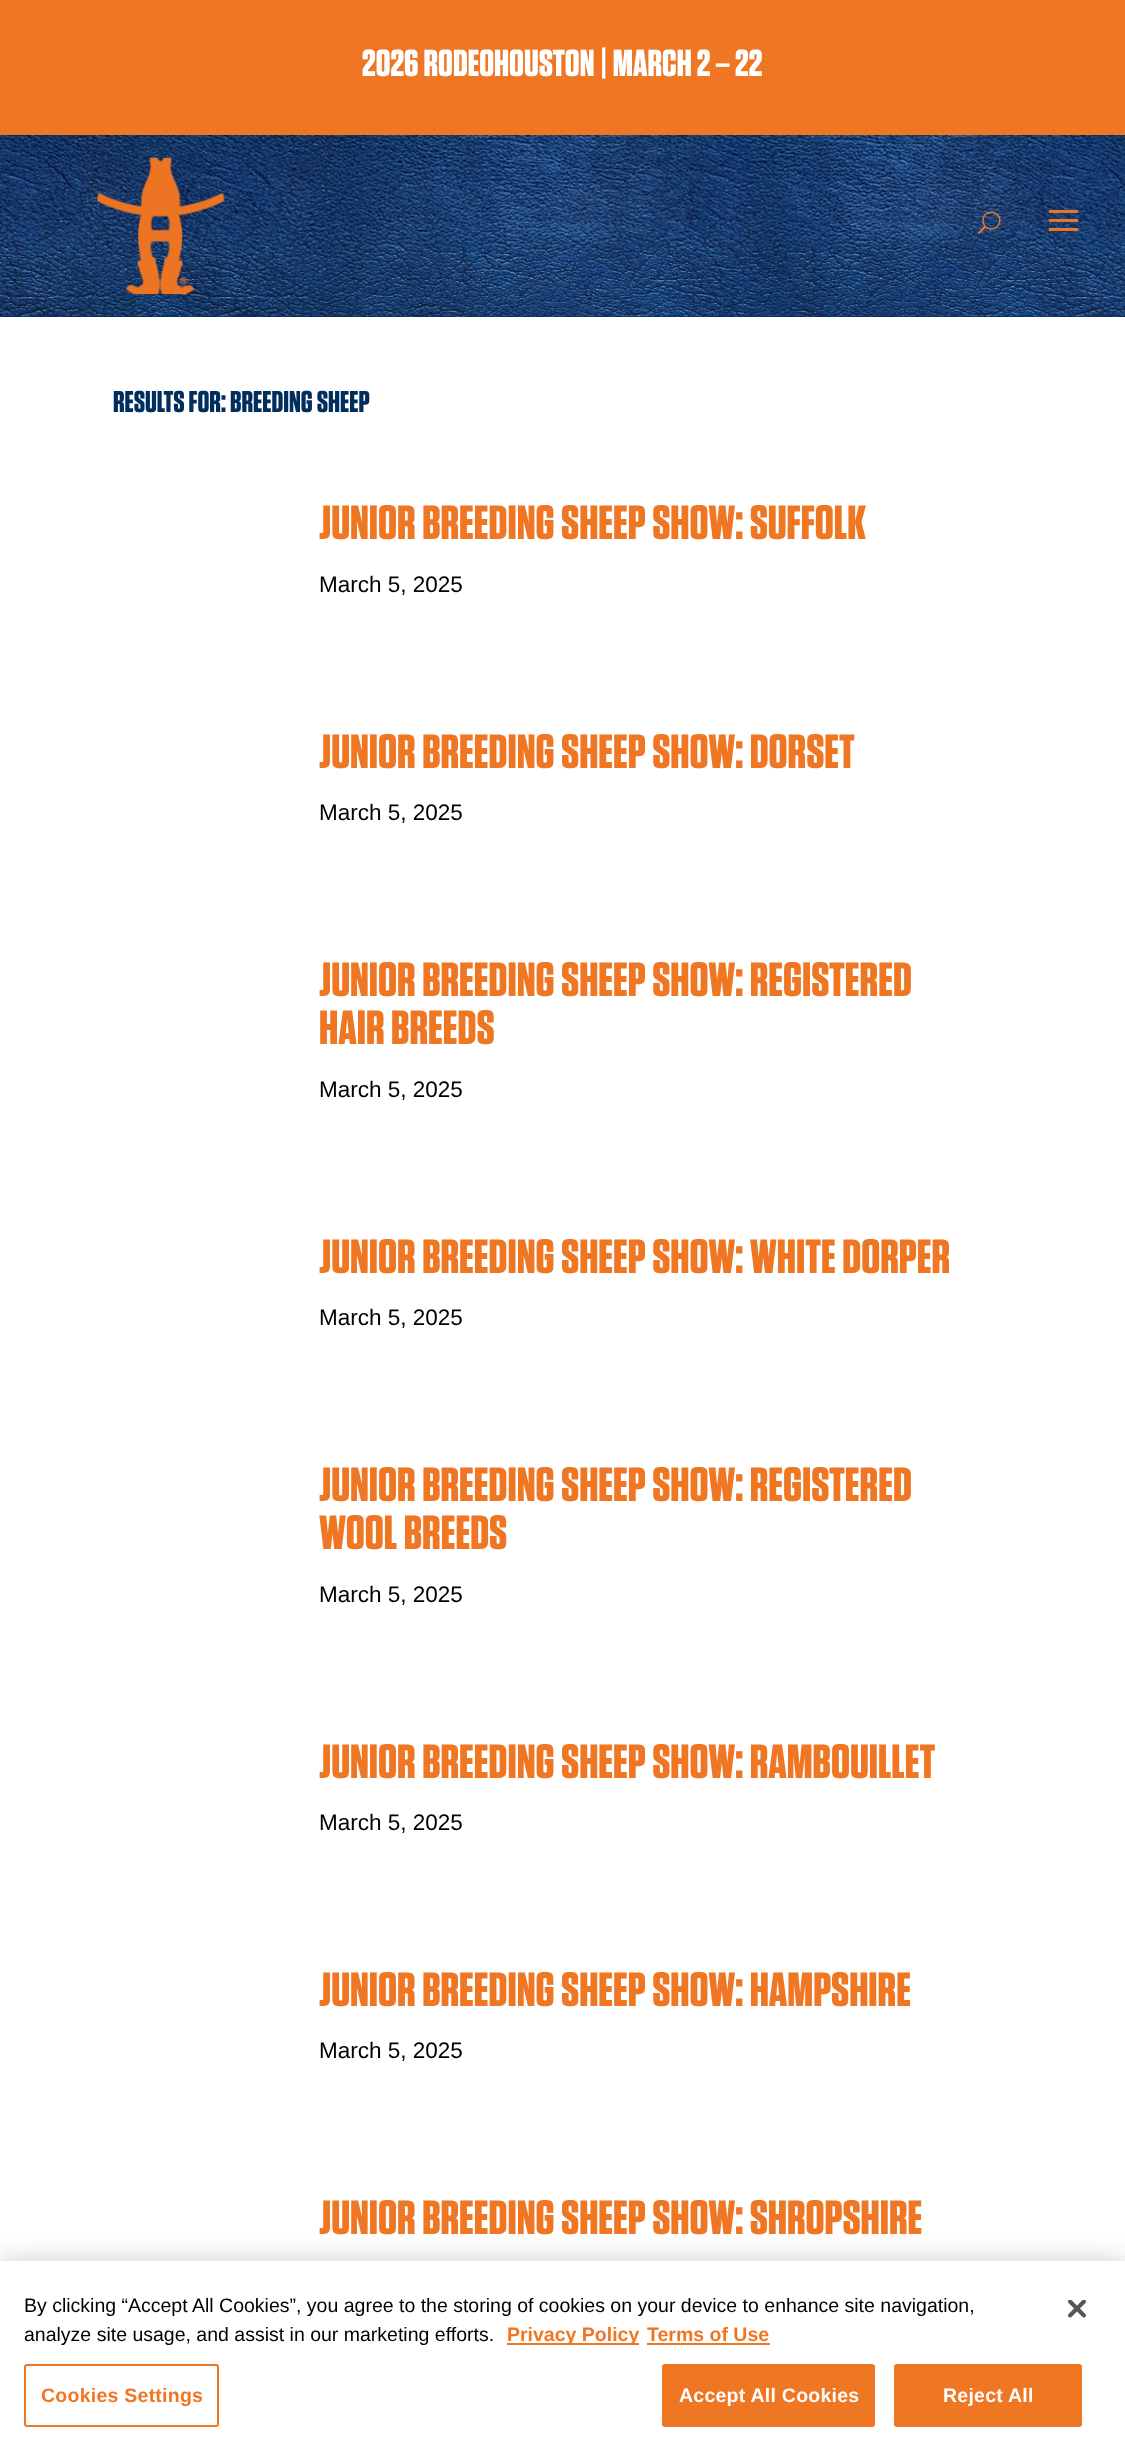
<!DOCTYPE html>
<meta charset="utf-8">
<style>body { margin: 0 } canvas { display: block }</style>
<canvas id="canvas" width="1125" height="2457"></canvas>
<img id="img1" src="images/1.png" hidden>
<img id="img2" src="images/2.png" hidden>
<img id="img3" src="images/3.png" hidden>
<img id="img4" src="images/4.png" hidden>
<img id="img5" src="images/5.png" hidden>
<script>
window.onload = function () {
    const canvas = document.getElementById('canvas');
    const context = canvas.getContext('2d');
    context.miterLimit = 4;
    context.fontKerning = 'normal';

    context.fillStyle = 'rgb(255, 255, 255)';
    context.fillRect(0, 0, 1125, 2457);
    context.fillStyle = 'rgb(239, 118, 34)';
    context.fillRect(0, 0, 1125, 135);
    context.fillStyle = 'rgb(0, 46, 93)';
    context.fillRect(0, 316, 1125, 1);
    context.drawImage(document.getElementById('img1'), 0, 135, 1125, 182);
    context.drawImage(document.getElementById('img2'), 96, 157, 129, 137);
    context.drawImage(document.getElementById('img3'), 978, 211, 23, 23);
    context.drawImage(document.getElementById('img4'), 1048, 209, 31, 22);
    context.fillStyle = 'rgba(0, 0, 0, 0.2)';
    context.filter = 'blur(13.5px)';
    context.beginPath();
    context.rect(0, 2261, 1125, 196);
    context.fill();
    context.filter = 'none';
    context.fillStyle = 'rgb(255, 255, 255)';
    context.fillRect(0, 2261, 1125, 196);
    context.fillStyle = 'rgb(239, 118, 34)';
    context.fillRect(507, 2343, 132, 2);
    context.fillRect(647, 2343, 123, 2);
    context.beginPath();
    context.roundRect(25, 2365, 193, 61, 2);
    context.strokeStyle = 'rgb(239, 118, 34)';
    context.lineWidth = 2;
    context.stroke();
    context.beginPath();
    context.roundRect(663, 2365, 211, 61, 2);
    context.fill();
    context.stroke();
    context.beginPath();
    context.roundRect(895, 2365, 186, 61, 2);
    context.fill();
    context.stroke();
    context.drawImage(document.getElementById('img5'), 1068, 2300, 18, 18);
    context.font = 'bold 37.5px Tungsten';
    context.fillStyle = 'rgb(255, 255, 255)';
    context.fillText('2026 RODEOHOUSTON | MARCH 2 – 22', 362, 76);
    context.font = 'bold 30px Tungsten';
    context.fillStyle = 'rgb(0, 46, 93)';
    context.fillText('RESULTS FOR: BREEDING SHEEP', 113, 412);
    context.font = 'bold 48px Tungsten';
    context.fillStyle = 'rgb(239, 118, 34)';
    context.fillText('JUNIOR BREEDING SHEEP SHOW: SUFFOLK', 319, 539);
    context.font = '22.5px Liberation Sans';
    context.fillStyle = 'rgb(0, 0, 0)';
    context.fillText('March 5, 2025', 319, 592);
    context.font = 'bold 48px Tungsten';
    context.fillStyle = 'rgb(239, 118, 34)';
    context.fillText('JUNIOR BREEDING SHEEP SHOW: DORSET', 319, 768);
    context.font = '22.5px Liberation Sans';
    context.fillStyle = 'rgb(0, 0, 0)';
    context.fillText('March 5, 2025', 319, 820);
    context.font = 'bold 48px Tungsten';
    context.fillStyle = 'rgb(239, 118, 34)';
    context.fillText('JUNIOR BREEDING SHEEP SHOW: REGISTERED', 319, 996);
    context.fillText('HAIR BREEDS', 319, 1044);
    context.font = '22.5px Liberation Sans';
    context.fillStyle = 'rgb(0, 0, 0)';
    context.fillText('March 5, 2025', 319, 1097);
    context.font = 'bold 48px Tungsten';
    context.fillStyle = 'rgb(239, 118, 34)';
    context.fillText('JUNIOR BREEDING SHEEP SHOW: WHITE DORPER', 319, 1273);
    context.font = '22.5px Liberation Sans';
    context.fillStyle = 'rgb(0, 0, 0)';
    context.fillText('March 5, 2025', 319, 1325);
    context.font = 'bold 48px Tungsten';
    context.fillStyle = 'rgb(239, 118, 34)';
    context.fillText('JUNIOR BREEDING SHEEP SHOW: REGISTERED', 319, 1501);
    context.fillText('WOOL BREEDS', 319, 1549);
    context.font = '22.5px Liberation Sans';
    context.fillStyle = 'rgb(0, 0, 0)';
    context.fillText('March 5, 2025', 319, 1602);
    context.font = 'bold 48px Tungsten';
    context.fillStyle = 'rgb(239, 118, 34)';
    context.fillText('JUNIOR BREEDING SHEEP SHOW: RAMBOUILLET', 319, 1778);
    context.font = '22.5px Liberation Sans';
    context.fillStyle = 'rgb(0, 0, 0)';
    context.fillText('March 5, 2025', 319, 1830);
    context.font = 'bold 48px Tungsten';
    context.fillStyle = 'rgb(239, 118, 34)';
    context.fillText('JUNIOR BREEDING SHEEP SHOW: HAMPSHIRE', 319, 2006);
    context.font = '22.5px Liberation Sans';
    context.fillStyle = 'rgb(0, 0, 0)';
    context.fillText('March 5, 2025', 319, 2058);
    context.font = 'bold 48px Tungsten';
    context.fillStyle = 'rgb(239, 118, 34)';
    context.fillText('JUNIOR BREEDING SHEEP SHOW: SHROPSHIRE', 319, 2234);
    context.font = '19.5px Liberation Sans';
    context.fillStyle = 'rgb(0, 0, 0)';
    context.fillText('By clicking “Accept All Cookies”, you agree to the storing of cookies on your device to enhance site navigation,', 24, 2312);
    context.fillText('analyze site usage, and assist in our marketing efforts.', 24, 2341);
    context.font = 'bold 19.5px Liberation Sans';
    context.fillStyle = 'rgb(239, 118, 34)';
    context.fillText('Privacy Policy', 507, 2341);
    context.fillText('Terms of Use', 647, 2341);
    context.letterSpacing = '0.25px';
    context.fillText('Cookies Settings', 41, 2402);
    context.fillStyle = 'rgb(255, 255, 255)';
    context.fillText('Accept All Cookies', 679, 2402);
    context.fillText('Reject All', 943, 2402);
};
</script>
